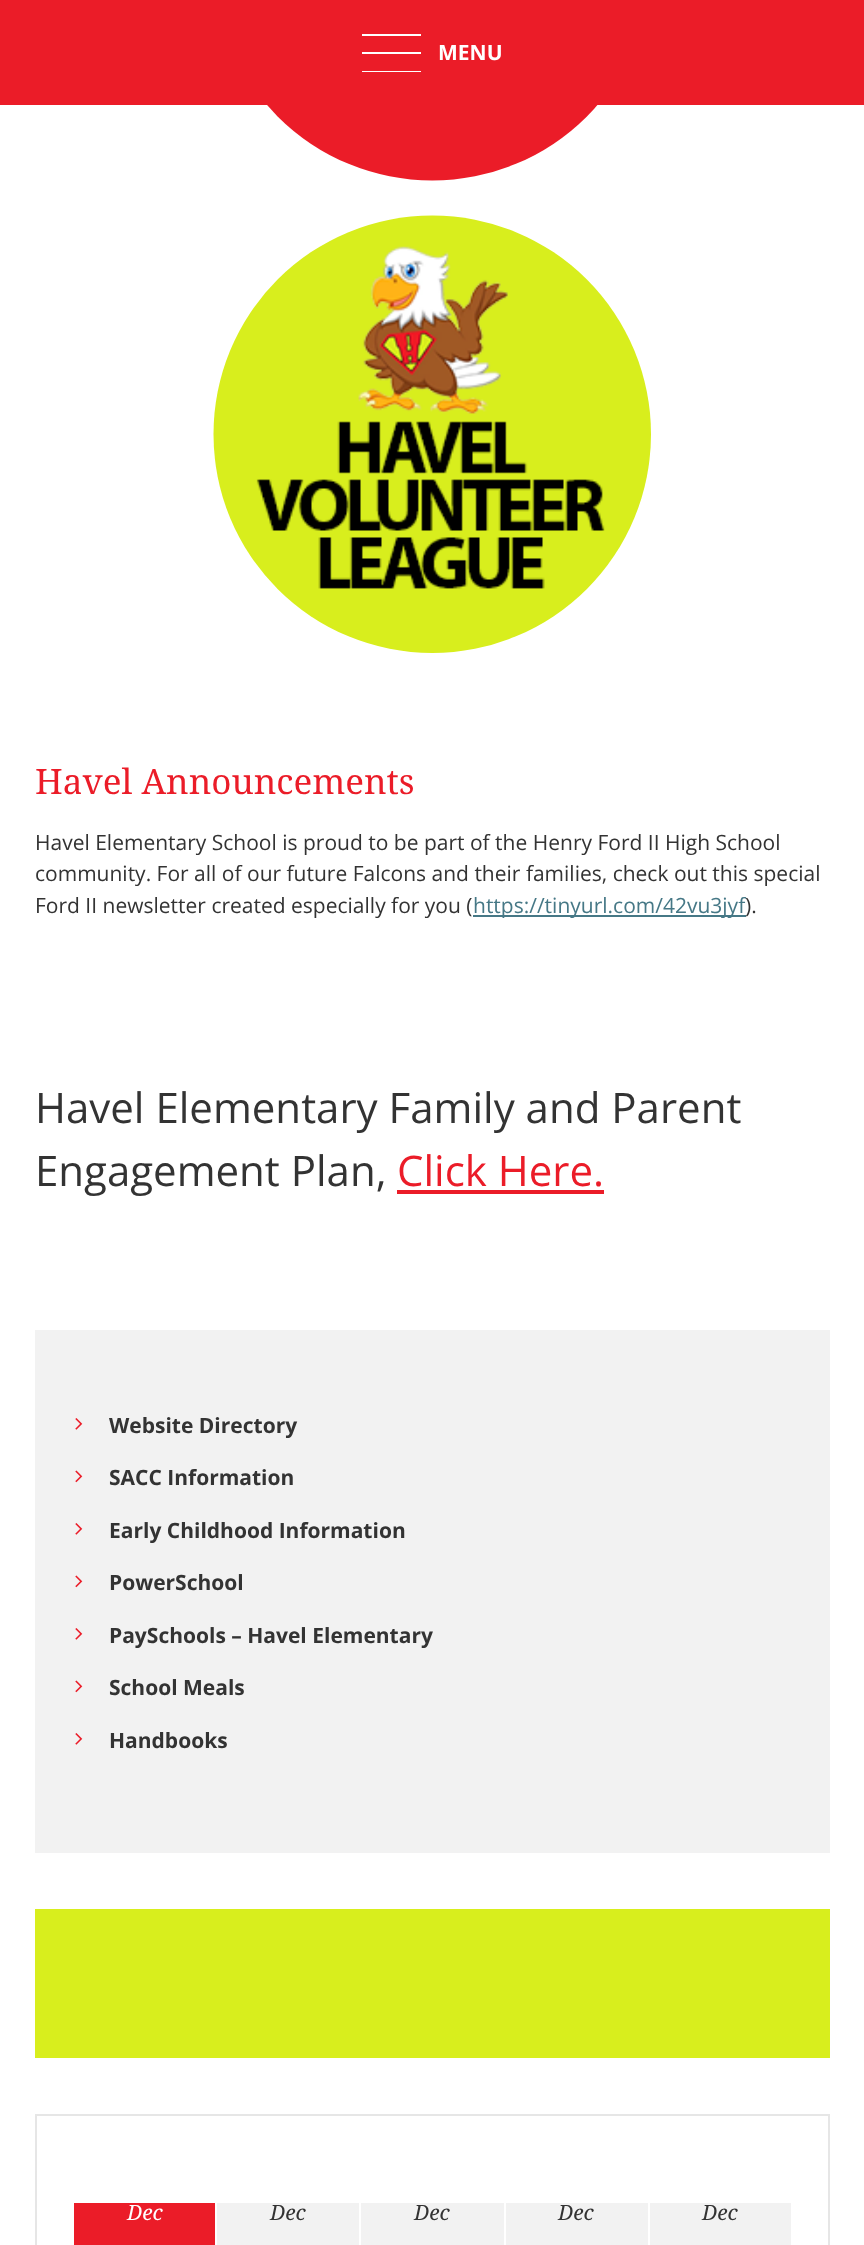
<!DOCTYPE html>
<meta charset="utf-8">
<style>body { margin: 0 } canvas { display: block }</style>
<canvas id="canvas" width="864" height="2245"></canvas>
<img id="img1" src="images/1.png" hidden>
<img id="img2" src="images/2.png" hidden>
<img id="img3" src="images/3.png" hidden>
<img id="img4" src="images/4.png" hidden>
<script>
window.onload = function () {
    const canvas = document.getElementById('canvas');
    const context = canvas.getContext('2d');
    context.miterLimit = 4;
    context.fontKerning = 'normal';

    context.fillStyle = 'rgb(255, 255, 255)';
    context.fillRect(0, 0, 864, 2245);
    context.fillStyle = 'rgb(235, 28, 40)';
    context.fillRect(0, 0, 864, 105);
    context.fillStyle = 'rgb(255, 255, 255)';
    context.beginPath();
    context.moveTo(362, 34);
    context.lineTo(421, 34);
    context.lineTo(421, 36);
    context.lineTo(362, 36);
    context.closePath();
    context.moveTo(362, 52);
    context.lineTo(421, 52);
    context.lineTo(421, 54);
    context.lineTo(362, 54);
    context.closePath();
    context.moveTo(362, 71);
    context.lineTo(421, 71);
    context.lineTo(421, 72);
    context.lineTo(362, 72);
    context.closePath();
    context.fill();
    context.drawImage(document.getElementById('img1'), 267, 105, 331, 76);
    context.drawImage(document.getElementById('img2'), 213, 215, 438, 438);
    context.fillStyle = 'rgb(70, 120, 134)';
    context.fillRect(473, 915, 273, 2);
    context.fillStyle = 'rgb(235, 28, 40)';
    context.fillRect(397, 1190, 207, 4);
    context.fillStyle = 'rgb(242, 242, 242)';
    context.fillRect(35, 1330, 795, 523);
    context.drawImage(document.getElementById('img3'), 75, 1418, 8, 12);
    context.drawImage(document.getElementById('img4'), 75, 1470, 8, 13);
    context.drawImage(document.getElementById('img3'), 75, 1523, 8, 12);
    context.drawImage(document.getElementById('img4'), 75, 1575, 8, 13);
    context.drawImage(document.getElementById('img3'), 75, 1628, 8, 12);
    context.drawImage(document.getElementById('img4'), 75, 1680, 8, 13);
    context.drawImage(document.getElementById('img3'), 75, 1733, 8, 12);
    context.fillStyle = 'rgb(216, 238, 29)';
    context.fillRect(35, 1909, 795, 149);
    context.strokeStyle = 'rgb(230, 230, 230)';
    context.lineWidth = 2;
    context.strokeRect(36, 2115, 793, 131);
    context.fillStyle = 'rgb(235, 28, 40)';
    context.fillRect(74, 2203, 141, 42);
    context.fillStyle = 'rgb(242, 242, 242)';
    context.fillRect(217, 2203, 142, 42);
    context.fillRect(361, 2203, 143, 42);
    context.fillRect(506, 2203, 142, 42);
    context.fillRect(650, 2203, 141, 42);
    context.font = 'bold 21px Open Sans';
    context.fillStyle = 'rgb(255, 255, 255)';
    context.fillText('MENU', 438, 60);
    context.font = '35px Noto Serif';
    context.fillStyle = 'rgb(235, 28, 40)';
    context.fillText('Havel Announcements', 35, 794);
    context.font = '21px Open Sans';
    context.fillStyle = 'rgb(51, 51, 51)';
    context.fillText('Havel Elementary School is proud to be part of the Henry Ford II High School', 35, 850);
    context.fillText('community. For all of our future Falcons and their families, check out this special', 35, 881);
    context.fillText('Ford II newsletter created especially for you (', 35, 913);
    context.fillStyle = 'rgb(70, 120, 134)';
    context.fillText('https://tinyurl.com/42vu3jyf', 473, 913);
    context.fillStyle = 'rgb(51, 51, 51)';
    context.fillText(').', 745, 913);
    context.font = '42px Open Sans';
    context.fillText('Havel Elementary Family and Parent', 35, 1123);
    context.fillText('Engagement Plan,', 35, 1186);
    context.fillStyle = 'rgb(235, 28, 40)';
    context.fillText('Click Here.', 397, 1186);
    context.font = 'bold 21px Open Sans';
    context.fillStyle = 'rgb(51, 51, 51)';
    context.fillText('Website Directory', 109, 1433);
    context.fillText('SACC Information', 109, 1485);
    context.fillText('Early Childhood Information', 109, 1538);
    context.fillText('PowerSchool', 109, 1590);
    context.fillText('PaySchools – Havel Elementary', 109, 1643);
    context.fillText('School Meals', 109, 1695);
    context.fillText('Handbooks', 109, 1748);
    context.font = 'italic 21px Noto Serif';
    context.fillStyle = 'rgb(255, 255, 255)';
    context.fillText('Dec', 127, 2220);
    context.fillStyle = 'rgb(51, 51, 51)';
    context.fillText('Dec', 270, 2220);
    context.fillText('Dec', 414, 2220);
    context.fillText('Dec', 558, 2220);
    context.fillText('Dec', 702, 2220);
};
</script>
